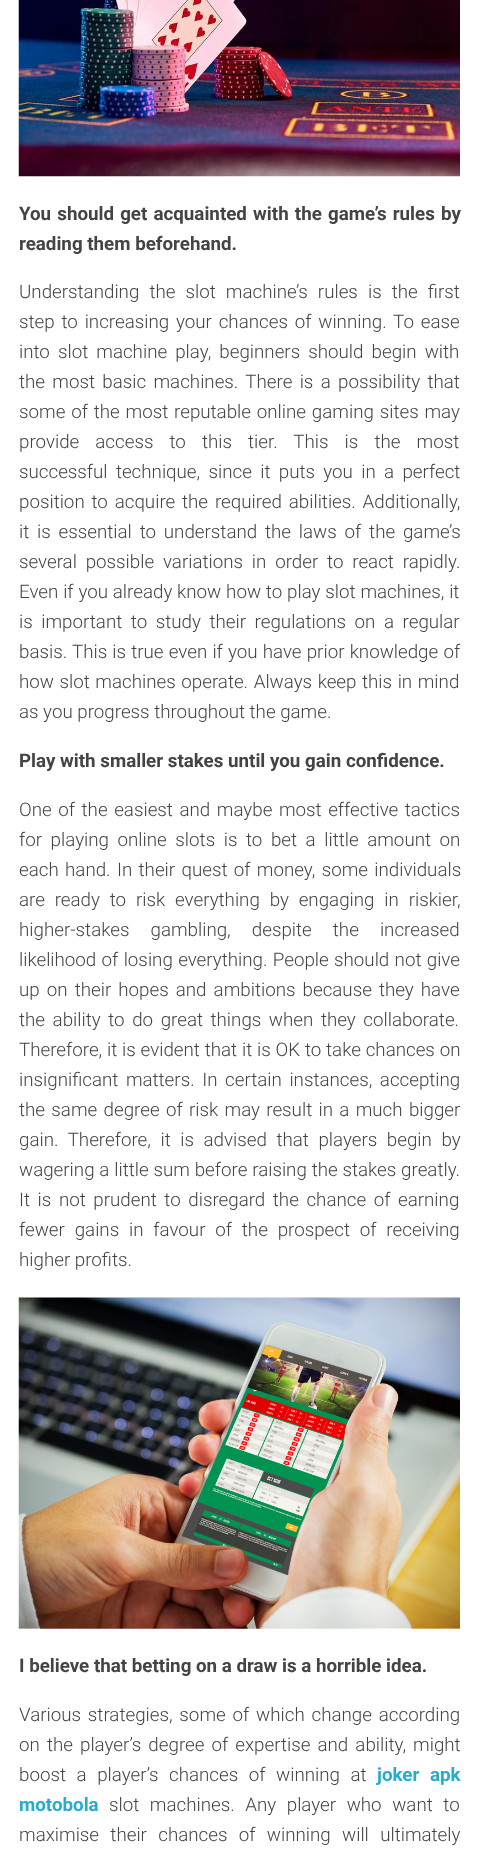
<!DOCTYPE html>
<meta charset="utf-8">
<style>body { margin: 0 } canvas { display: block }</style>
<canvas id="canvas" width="478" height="1863"></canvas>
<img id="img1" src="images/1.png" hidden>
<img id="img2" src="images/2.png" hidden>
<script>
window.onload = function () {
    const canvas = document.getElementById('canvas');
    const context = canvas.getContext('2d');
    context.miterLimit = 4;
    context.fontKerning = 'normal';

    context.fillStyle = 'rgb(255, 255, 255)';
    context.fillRect(0, 0, 478, 1863);
    context.drawImage(document.getElementById('img1'), 18, 0, 442, 177);
    context.drawImage(document.getElementById('img2'), 18, 1297, 442, 332);
    context.wordSpacing = '1.5px';
    context.font = 'bold 18.75px Roboto';
    context.fillStyle = 'rgb(68, 68, 68)';
    context.fillText('You should get acquainted with the game’s rules by', 19, 220);
    context.wordSpacing = '0px';
    context.fillText('reading them beforehand.', 19, 250);
    context.wordSpacing = '5.5px';
    context.font = '300 18.75px Roboto';
    context.fillText('Understanding the slot machine’s rules is the first', 19, 298);
    context.wordSpacing = '2.25px';
    context.fillText('step to increasing your chances of winning. To ease', 19, 328);
    context.wordSpacing = '3.5px';
    context.fillText('into slot machine play, beginners should begin with', 19, 358);
    context.wordSpacing = '2.75px';
    context.fillText('the most basic machines. There is a possibility that', 19, 388);
    context.wordSpacing = '1.25px';
    context.fillText('some of the most reputable online gaming sites may', 19, 418);
    context.wordSpacing = '11.5px';
    context.fillText('provide access to this tier. This is the most', 19, 448);
    context.wordSpacing = '3.75px';
    context.fillText('successful technique, since it puts you in a perfect', 19, 478);
    context.wordSpacing = '2.25px';
    context.fillText('position to acquire the required abilities. Additionally,', 19, 508);
    context.wordSpacing = '3.25px';
    context.fillText('it is essential to understand the laws of the game’s', 19, 538);
    context.wordSpacing = '4.25px';
    context.fillText('several possible variations in order to react rapidly.', 19, 568);
    context.wordSpacing = '0.25px';
    context.fillText('Even if you already know how to play slot machines, it', 19, 598);
    context.wordSpacing = '4px';
    context.fillText('is important to study their regulations on a regular', 19, 628);
    context.wordSpacing = '0.6px';
    context.fillText('basis. This is true even if you have prior knowledge of', 19, 658);
    context.wordSpacing = '1px';
    context.fillText('how slot machines operate. Always keep this in mind', 19, 688);
    context.wordSpacing = '0px';
    context.fillText('as you progress throughout the game.', 19, 718);
    context.font = 'bold 18.75px Roboto';
    context.fillText('Play with smaller stakes until you gain confidence.', 19, 767);
    context.wordSpacing = '2px';
    context.font = '300 18.75px Roboto';
    context.fillText('One of the easiest and maybe most effective tactics', 19, 816);
    context.wordSpacing = '4px';
    context.fillText('for playing online slots is to bet a little amount on', 19, 846);
    context.wordSpacing = '1.75px';
    context.fillText('each hand. In their quest of money, some individuals', 19, 876);
    context.wordSpacing = '5.25px';
    context.fillText('are ready to risk everything by engaging in riskier,', 19, 906);
    context.wordSpacing = '16.5px';
    context.fillText('higher-stakes gambling, despite the increased', 19, 936);
    context.wordSpacing = '0.75px';
    context.fillText('likelihood of losing everything. People should not give', 19, 966);
    context.wordSpacing = '2.5px';
    context.fillText('up on their hopes and ambitions because they have', 19, 996);
    context.wordSpacing = '3px';
    context.fillText('the ability to do great things when they collaborate.', 19, 1026);
    context.wordSpacing = '0.25px';
    context.fillText('Therefore, it is evident that it is OK to take chances on', 19, 1056);
    context.wordSpacing = '3px';
    context.fillText('insignificant matters. In certain instances, accepting', 19, 1086);
    context.wordSpacing = '1.75px';
    context.fillText('the same degree of risk may result in a much bigger', 19, 1116);
    context.wordSpacing = '5px';
    context.fillText('gain. Therefore, it is advised that players begin by', 19, 1146);
    context.wordSpacing = '0.25px';
    context.fillText('wagering a little sum before raising the stakes greatly.', 19, 1176);
    context.wordSpacing = '3px';
    context.fillText('It is not prudent to disregard the chance of earning', 19, 1206);
    context.wordSpacing = '5.25px';
    context.fillText('fewer gains in favour of the prospect of receiving', 19, 1236);
    context.wordSpacing = '0px';
    context.fillText('higher profits.', 19, 1266);
    context.font = 'bold 18.75px Roboto';
    context.fillText('I believe that betting on a draw is a horrible idea.', 19, 1672);
    context.wordSpacing = '2.25px';
    context.font = '300 18.75px Roboto';
    context.fillText('Various strategies, some of which change according', 19, 1721);
    context.wordSpacing = '2.5px';
    context.fillText('on the player’s degree of expertise and ability, might', 19, 1751);
    context.wordSpacing = '6px';
    context.fillText('boost a player’s chances of winning at', 19, 1781);
    context.font = 'bold 18.75px Roboto';
    context.fillStyle = 'rgb(38, 171, 211)';
    context.fillText('joker apk', 377, 1781);
    context.wordSpacing = '0px';
    context.fillText('motobola', 19, 1811);
    context.wordSpacing = '6px';
    context.font = '300 18.75px Roboto';
    context.fillStyle = 'rgb(68, 68, 68)';
    context.fillText('slot machines. Any player who want to', 109, 1811);
    context.wordSpacing = '6.75px';
    context.fillText('maximise their chances of winning will ultimately', 19, 1841);
};
</script>
